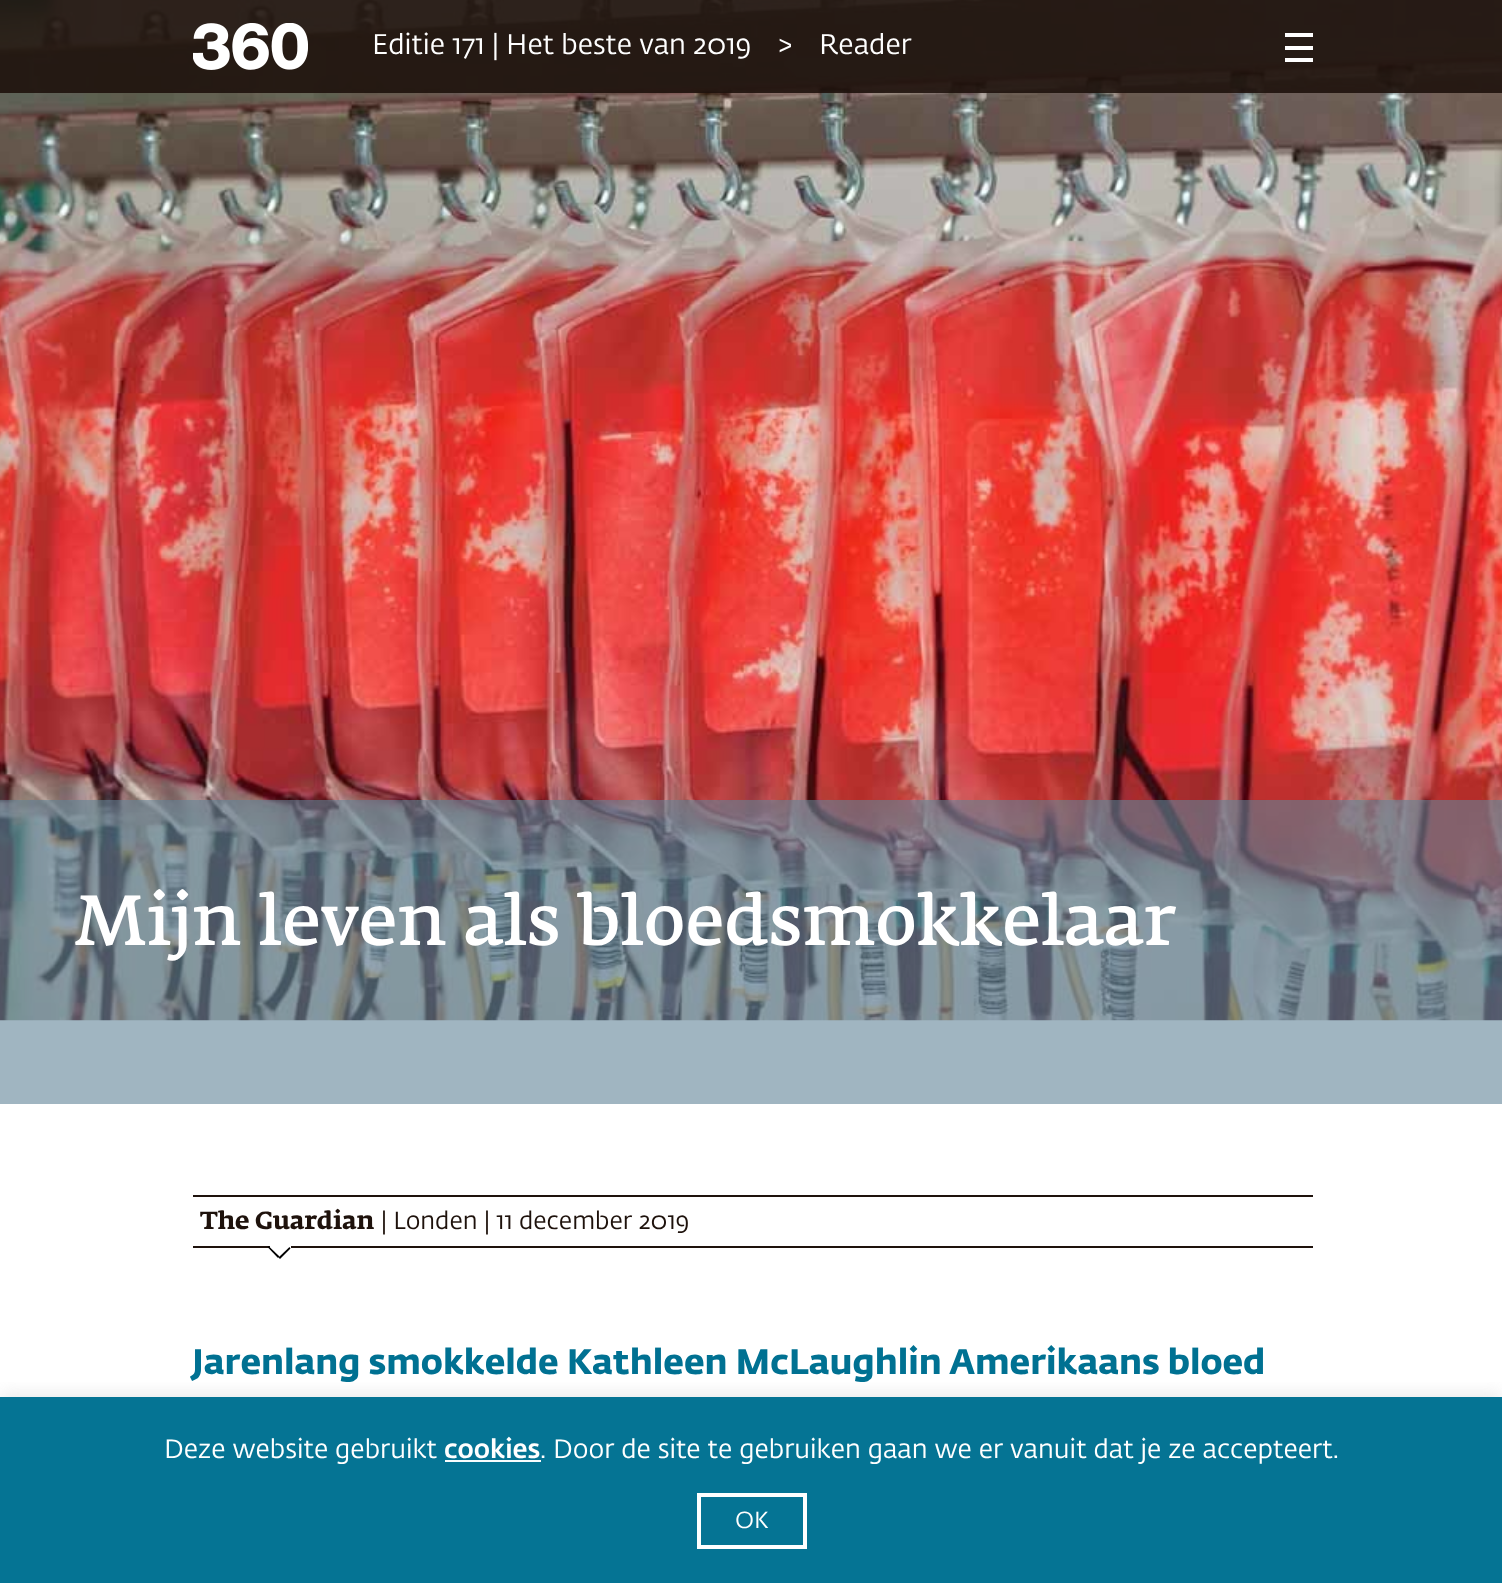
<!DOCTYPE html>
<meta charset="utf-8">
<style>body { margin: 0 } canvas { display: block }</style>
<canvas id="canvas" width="1502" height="1583"></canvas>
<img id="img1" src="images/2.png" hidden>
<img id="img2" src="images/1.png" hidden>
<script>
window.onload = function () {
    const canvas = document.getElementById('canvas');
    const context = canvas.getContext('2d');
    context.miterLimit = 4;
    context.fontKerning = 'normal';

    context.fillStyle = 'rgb(255, 255, 255)';
    context.fillRect(0, 0, 1502, 1583);
    context.fillStyle = 'rgb(5, 116, 148)';
    context.fillRect(0, 1397, 1502, 186);
    context.drawImage(document.getElementById('img1'), 0, 0, 1502, 1021);
    context.fillStyle = 'rgba(30, 18, 12, 0.9)';
    context.fillRect(0, 0, 1502, 93);
    context.drawImage(document.getElementById('img2'), 193, 23, 115, 47);
    context.fillStyle = 'rgb(255, 255, 255)';
    context.fillRect(1285, 33, 28, 4);
    context.fillRect(1285, 46, 28, 4);
    context.fillRect(1285, 58, 28, 4);
    context.fillStyle = 'rgba(97, 132, 152, 0.6)';
    context.fillRect(0, 800, 1502, 304);
    context.fillStyle = 'rgb(30, 18, 12)';
    context.fillRect(193, 1195, 1120, 2);
    context.fillRect(193, 1246, 1120, 2);
    context.fillStyle = 'rgb(255, 255, 255)';
    context.fillRect(270, 1246, 21, 2);
    context.fillStyle = 'rgb(0, 0, 0)';
    context.beginPath();
    context.moveTo(268.5, 1246);
    context.lineTo(279.5, 1256.5);
    context.lineTo(278, 1258);
    context.lineTo(267.5, 1247);
    context.closePath();
    context.fill();
    context.beginPath();
    context.moveTo(278.5, 1257.5);
    context.lineTo(289.5, 1247);
    context.lineTo(290.5, 1248.5);
    context.lineTo(280, 1259);
    context.closePath();
    context.fill();
    context.save();
    context.beginPath();
    context.rect(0, 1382, 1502, 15);
    context.clip();
    context.fillStyle = 'rgba(172, 171, 171, 0.29)';
    context.filter = 'blur(9px)';
    context.beginPath();
    context.rect(0, 1395, 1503, 187);
    context.fill();
    context.filter = 'none';
    context.restore();
    context.fillStyle = 'rgba(255, 255, 255, 0.98)';
    context.fillRect(445, 1460, 96, 2);
    context.strokeStyle = 'rgb(255, 255, 255)';
    context.lineWidth = 4;
    context.strokeRect(699, 1495, 106, 52);
    context.font = '28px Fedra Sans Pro';
    context.fillStyle = 'rgb(255, 255, 255)';
    context.fillText('Editie 171 | Het beste van 2019', 372, 54);
    context.fillText('>', 778, 54);
    context.fillText('Reader', 819, 54);
    context.font = '70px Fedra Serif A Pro';
    context.fillText('Mijn leven als bloedsmokkelaar', 74, 945);
    context.font = 'bold 24.5px Fedra Serif A Pro';
    context.fillStyle = 'rgb(30, 18, 12)';
    context.fillText('The Guardian', 200, 1229);
    context.font = '24.5px Fedra Sans Pro';
    context.fillText('| Londen | 11 december 2019', 381, 1229);
    context.font = 'bold 35px Fedra Sans Pro';
    context.fillStyle = 'rgb(0, 113, 146)';
    context.fillText('Jarenlang smokkelde Kathleen McLaughlin Amerikaans bloed', 192, 1374);
    context.font = '26.25px Fedra Sans Pro';
    context.fillStyle = 'rgb(255, 255, 255)';
    context.fillText('Deze website gebruikt', 164, 1458);
    context.font = '500 26.25px Fedra Sans Pro';
    context.fillText('cookies', 444, 1458);
    context.font = '26.25px Fedra Sans Pro';
    context.fillText('. Door de site te gebruiken gaan we er vanuit dat je ze accepteert.', 540, 1458);
    context.font = '23px Fedra Sans Pro';
    context.fillText('OK', 735, 1528);
};
</script>
